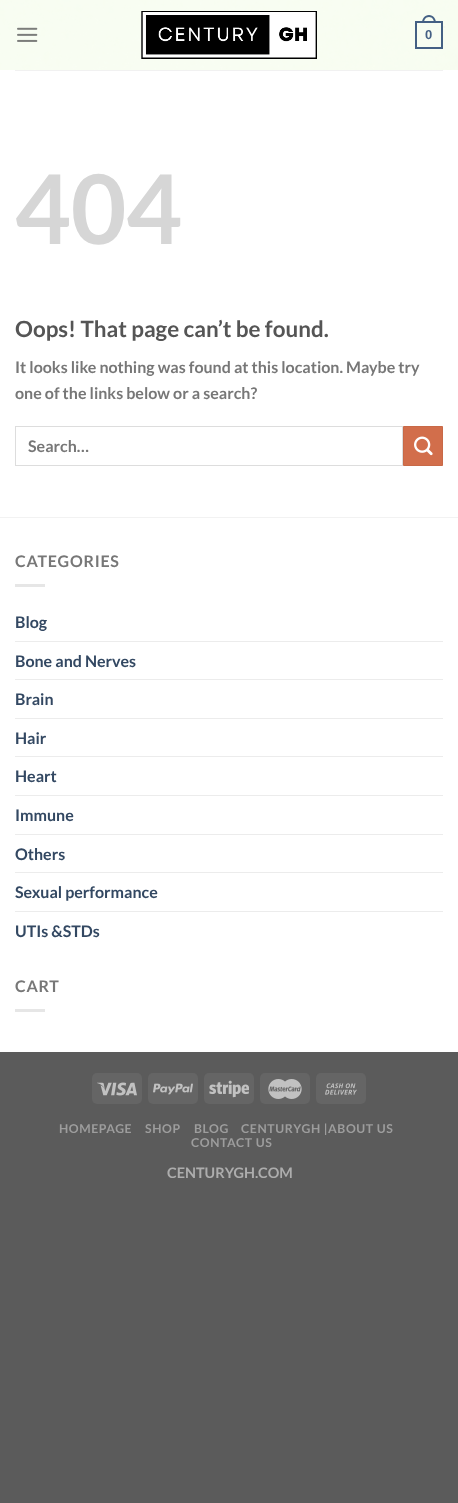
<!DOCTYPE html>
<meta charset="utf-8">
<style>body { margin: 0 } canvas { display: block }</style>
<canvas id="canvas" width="458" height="1503"></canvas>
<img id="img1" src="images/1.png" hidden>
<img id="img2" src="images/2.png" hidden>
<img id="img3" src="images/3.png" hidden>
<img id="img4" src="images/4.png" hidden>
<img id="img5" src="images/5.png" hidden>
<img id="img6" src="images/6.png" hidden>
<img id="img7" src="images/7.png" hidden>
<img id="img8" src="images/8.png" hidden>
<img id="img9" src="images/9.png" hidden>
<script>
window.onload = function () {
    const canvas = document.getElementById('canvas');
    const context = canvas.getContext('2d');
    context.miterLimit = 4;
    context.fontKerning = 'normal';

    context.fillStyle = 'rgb(91, 91, 91)';
    context.fillRect(0, 0, 458, 1503);
    context.fillStyle = 'rgb(255, 255, 255)';
    context.fillRect(0, 70, 458, 982);
    context.drawImage(document.getElementById('img1'), 0, 0, 458, 70);
    context.drawImage(document.getElementById('img2'), 17, 27, 21, 15);
    context.drawImage(document.getElementById('img3'), 141, 11, 176, 48);
    context.strokeStyle = 'rgb(68, 96, 132)';
    context.lineWidth = 2;
    context.strokeRect(416, 22, 26, 26);
    context.fillStyle = 'rgb(68, 96, 132)';
    context.beginPath();
    context.moveTo(429, 15);
    context.bezierCurveTo(433.5, 15, 436, 19, 436, 23);
    context.lineTo(422, 23);
    context.bezierCurveTo(422, 19, 424.5, 15, 429, 15);
    context.closePath();
    context.moveTo(429, 17);
    context.bezierCurveTo(432.5, 17, 434, 20, 434, 23);
    context.lineTo(424, 23);
    context.bezierCurveTo(424, 20, 425.5, 17, 429, 17);
    context.closePath();
    context.fill('evenodd');
    context.fillStyle = 'rgb(241, 241, 241)';
    context.fillRect(15, 70, 428, 1);
    context.strokeStyle = 'rgb(221, 221, 221)';
    context.lineWidth = 1;
    context.strokeRect(15.5, 426.5, 387, 39);
    context.fillStyle = 'rgb(210, 110, 75)';
    context.beginPath();
    context.rect(403.5, 426.5, 39, 39);
    context.fill();
    context.strokeStyle = 'rgb(200, 105, 71)';
    context.stroke();
    context.drawImage(document.getElementById('img4'), 414, 436, 19, 20);
    context.fillStyle = 'rgb(242, 242, 242)';
    context.fillRect(0, 517, 458, 1);
    context.fillStyle = 'rgb(230, 230, 230)';
    context.fillRect(15, 584, 30, 3);
    context.fillStyle = 'rgb(236, 236, 236)';
    context.fillRect(15, 641, 428, 1);
    context.fillRect(15, 679, 428, 1);
    context.fillRect(15, 718, 428, 1);
    context.fillRect(15, 756, 428, 1);
    context.fillRect(15, 795, 428, 1);
    context.fillRect(15, 834, 428, 1);
    context.fillRect(15, 872, 428, 1);
    context.fillRect(15, 911, 428, 1);
    context.fillStyle = 'rgb(230, 230, 230)';
    context.fillRect(15, 1009, 30, 3);
    context.fillStyle = 'rgb(101, 101, 101)';
    context.beginPath();
    context.roundRect(92, 1073, 50, 31, 5);
    context.fill();
    context.drawImage(document.getElementById('img5'), 97, 1082, 40, 14);
    context.beginPath();
    context.roundRect(148, 1073, 50, 31, 5);
    context.fill();
    context.drawImage(document.getElementById('img6'), 153, 1083, 40, 12);
    context.beginPath();
    context.roundRect(204, 1073, 50, 31, 5);
    context.fill();
    context.drawImage(document.getElementById('img7'), 209, 1080, 40, 18);
    context.beginPath();
    context.roundRect(260, 1073, 50, 31, 5);
    context.fill();
    context.drawImage(document.getElementById('img8'), 268, 1079, 34, 20);
    context.beginPath();
    context.roundRect(316, 1073, 50, 31, 5);
    context.fill();
    context.drawImage(document.getElementById('img9'), 325, 1083, 32, 12);
    context.font = 'bold 13px Liberation Sans';
    context.fillStyle = 'rgb(68, 96, 132)';
    context.fillText('0', 425, 39);
    context.font = 'bold 96px Lato';
    context.fillStyle = 'rgb(214, 214, 214)';
    context.fillText('404', 15, 244);
    context.font = 'bold 22.4px Lato';
    context.fillStyle = 'rgb(85, 85, 85)';
    context.fillText('Oops! That page can’t be found.', 15, 337);
    context.font = 'bold 16px Lato';
    context.fillStyle = 'rgb(119, 119, 119)';
    context.fillText('It looks like nothing was found at this location. Maybe try', 15, 373);
    context.fillText('one of the links below or a search?', 15, 399);
    context.fillText('Search…', 28, 452);
    context.letterSpacing = '0.75px';
    context.fillText('CATEGORIES', 15, 567);
    context.letterSpacing = '0px';
    context.fillStyle = 'rgb(51, 72, 98)';
    context.fillText('Blog', 15, 628);
    context.fillText('Bone and Nerves', 15, 667);
    context.fillText('Brain', 15, 705);
    context.fillText('Hair', 15, 744);
    context.fillText('Heart', 15, 782);
    context.fillText('Immune', 15, 821);
    context.fillText('Others', 15, 860);
    context.fillText('Sexual performance', 15, 898);
    context.fillText('UTIs &STDs', 15, 937);
    context.letterSpacing = '0.75px';
    context.fillStyle = 'rgb(119, 119, 119)';
    context.fillText('CART', 15, 992);
    context.letterSpacing = '0.6px';
    context.font = 'bold 12.25px Lato';
    context.fillStyle = 'rgb(157, 157, 157)';
    context.fillText('HOMEPAGE', 59, 1133);
    context.fillText('SHOP', 145, 1133);
    context.fillText('BLOG', 194, 1133);
    context.fillText('CENTURYGH |ABOUT US', 241, 1133);
    context.fillText('CONTACT US', 191, 1147);
    context.letterSpacing = '0px';
    context.font = 'bold 14.5px Lato';
    context.fillStyle = 'rgb(173, 173, 173)';
    context.fillText('CENTURYGH.COM', 167, 1178);
};
</script>
